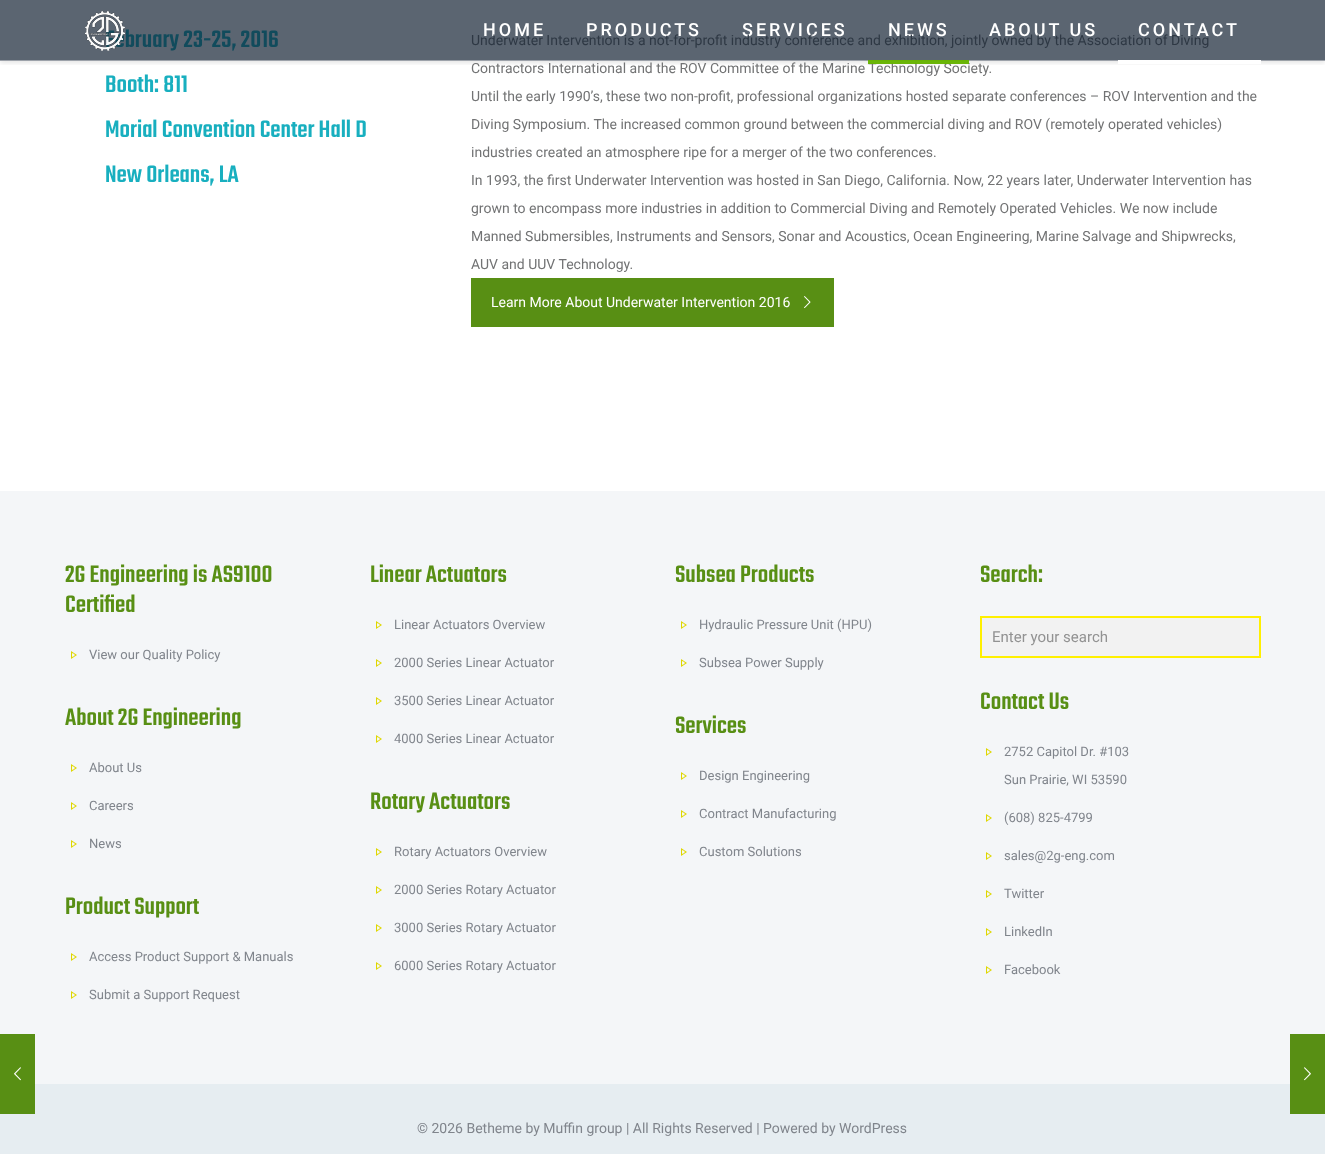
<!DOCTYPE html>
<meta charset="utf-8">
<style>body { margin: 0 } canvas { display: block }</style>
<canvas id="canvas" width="1325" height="1154"></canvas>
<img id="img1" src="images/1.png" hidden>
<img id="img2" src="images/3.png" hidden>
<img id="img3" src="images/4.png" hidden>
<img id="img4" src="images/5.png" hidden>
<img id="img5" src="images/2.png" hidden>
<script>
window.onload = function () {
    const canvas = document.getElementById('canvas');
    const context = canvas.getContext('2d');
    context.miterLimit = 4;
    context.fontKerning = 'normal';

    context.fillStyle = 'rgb(255, 255, 255)';
    context.fillRect(0, 0, 1325, 1154);
    context.fillStyle = 'rgb(244, 246, 248)';
    context.fillRect(0, 491, 1325, 593);
    context.fillStyle = 'rgb(230, 237, 241)';
    context.fillRect(0, 1084, 1325, 70);
    context.fillStyle = 'rgb(88, 143, 20)';
    context.fillRect(0, 1034, 35, 80);
    context.drawImage(document.getElementById('img1'), 14, 1067, 7, 14);
    context.fillStyle = 'rgb(91, 101, 113)';
    context.fillRect(0, 0, 1325, 60);
    context.save();
    context.beginPath();
    context.rect(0, 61, 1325, 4);
    context.clip();
    context.fillStyle = 'rgba(0, 0, 0, 0.1)';
    context.filter = 'blur(2.5px)';
    context.beginPath();
    context.rect(0, 2, 1325, 61);
    context.fill();
    context.filter = 'none';
    context.restore();
    context.fillStyle = 'rgb(157, 162, 170)';
    context.fillRect(0, 60, 1325, 1);
    context.fillStyle = 'rgb(255, 255, 255)';
    context.fillRect(1118, 60, 143, 4);
    context.fillStyle = 'rgb(88, 143, 20)';
    context.fillRect(471, 278, 363, 49);
    context.drawImage(document.getElementById('img2'), 804, 296, 7, 13);
    context.drawImage(document.getElementById('img3'), 71, 651, 6, 8);
    context.drawImage(document.getElementById('img3'), 71, 764, 6, 8);
    context.drawImage(document.getElementById('img3'), 71, 802, 6, 8);
    context.drawImage(document.getElementById('img3'), 71, 840, 6, 8);
    context.drawImage(document.getElementById('img3'), 71, 953, 6, 8);
    context.drawImage(document.getElementById('img3'), 71, 991, 6, 8);
    context.drawImage(document.getElementById('img3'), 376, 621, 6, 8);
    context.drawImage(document.getElementById('img3'), 376, 659, 6, 8);
    context.drawImage(document.getElementById('img3'), 376, 697, 6, 8);
    context.drawImage(document.getElementById('img3'), 376, 735, 6, 8);
    context.drawImage(document.getElementById('img3'), 376, 848, 6, 8);
    context.drawImage(document.getElementById('img3'), 376, 886, 6, 8);
    context.drawImage(document.getElementById('img3'), 376, 924, 6, 8);
    context.drawImage(document.getElementById('img3'), 376, 962, 6, 8);
    context.drawImage(document.getElementById('img3'), 681, 621, 6, 8);
    context.drawImage(document.getElementById('img3'), 681, 659, 6, 8);
    context.drawImage(document.getElementById('img3'), 681, 772, 6, 8);
    context.drawImage(document.getElementById('img3'), 681, 810, 6, 8);
    context.drawImage(document.getElementById('img3'), 681, 848, 6, 8);
    context.fillStyle = 'rgb(242, 242, 242)';
    context.beginPath();
    context.rect(981, 617, 279, 40);
    context.fill();
    context.strokeStyle = 'rgb(255, 240, 0)';
    context.lineWidth = 2;
    context.stroke();
    context.drawImage(document.getElementById('img3'), 986, 748, 6, 8);
    context.drawImage(document.getElementById('img3'), 986, 814, 6, 8);
    context.drawImage(document.getElementById('img3'), 986, 852, 6, 8);
    context.drawImage(document.getElementById('img3'), 986, 890, 6, 8);
    context.drawImage(document.getElementById('img3'), 986, 928, 6, 8);
    context.drawImage(document.getElementById('img3'), 986, 966, 6, 8);
    context.fillStyle = 'rgb(88, 143, 20)';
    context.fillRect(1290, 1034, 35, 80);
    context.drawImage(document.getElementById('img4'), 1304, 1067, 7, 14);
    context.letterSpacing = '3px';
    context.font = '500 18px Roboto';
    context.fillStyle = 'rgb(255, 255, 255)';
    context.fillText('HOME', 483, 36);
    context.fillText('PRODUCTS', 586, 36);
    context.fillText('SERVICES', 742, 36);
    context.fillText('NEWS', 888, 36);
    context.fillText('ABOUT US', 989, 36);
    context.fillText('CONTACT', 1138, 36);
    context.letterSpacing = '0px';
    context.font = '300 26px Teko';
    context.fillStyle = 'rgb(17, 75, 92)';
    context.fillText('February 23-25, 2016', 105, 47);
    context.drawImage(document.getElementById('img5'), 85, 11, 40, 40);
    context.fillStyle = 'rgb(24, 175, 191)';
    context.fillText('Booth: 811', 105, 92);
    context.fillText('Morial Convention Center Hall D', 105, 137);
    context.fillText('New Orleans, LA', 105, 182);
    context.font = '14px Roboto';
    context.fillStyle = 'rgb(46, 56, 68)';
    context.fillText('Underwater Intervention is a not-for-profit industry conference and exhibition, jointly owned by the Association of Diving', 471, 45);
    context.fillStyle = 'rgb(114, 115, 116)';
    context.fillText('Contractors International and the ROV Committee of the Marine Technology Society.', 471, 73);
    context.fillStyle = 'rgba(101, 179, 0, 0.97)';
    context.fillRect(868, 60, 101, 4);
    context.fillStyle = 'rgb(114, 115, 116)';
    context.fillText('Until the early 1990’s, these two non-profit, professional organizations hosted separate conferences – ROV Intervention and the', 471, 101);
    context.fillText('Diving Symposium. The increased common ground between the commercial diving and ROV (remotely operated vehicles)', 471, 129);
    context.fillText('industries created an atmosphere ripe for a merger of the two conferences.', 471, 157);
    context.fillText('In 1993, the first Underwater Intervention was hosted in San Diego, California. Now, 22 years later, Underwater Intervention has', 471, 185);
    context.fillText('grown to encompass more industries in addition to Commercial Diving and Remotely Operated Vehicles. We now include', 471, 213);
    context.fillText('Manned Submersibles, Instruments and Sensors, Sonar and Acoustics, Ocean Engineering, Marine Salvage and Shipwrecks,', 471, 241);
    context.fillText('AUV and UUV Technology.', 471, 269);
    context.fillStyle = 'rgb(255, 255, 255)';
    context.fillText('Learn More About Underwater Intervention 2016', 491, 307);
    context.font = '300 26px Teko';
    context.fillStyle = 'rgb(88, 143, 20)';
    context.fillText('2G Engineering is AS9100', 65, 582);
    context.fillText('Certified', 65, 612);
    context.font = '13px Roboto';
    context.fillStyle = 'rgb(128, 133, 140)';
    context.fillText('View our Quality Policy', 89, 659);
    context.font = '300 26px Teko';
    context.fillStyle = 'rgb(88, 143, 20)';
    context.fillText('About 2G Engineering', 65, 725);
    context.font = '13px Roboto';
    context.fillStyle = 'rgb(128, 133, 140)';
    context.fillText('About Us', 89, 772);
    context.fillText('Careers', 89, 810);
    context.fillText('News', 89, 848);
    context.font = '300 26px Teko';
    context.fillStyle = 'rgb(88, 143, 20)';
    context.fillText('Product Support', 65, 914);
    context.font = '13px Roboto';
    context.fillStyle = 'rgb(128, 133, 140)';
    context.fillText('Access Product Support & Manuals', 89, 961);
    context.fillText('Submit a Support Request', 89, 999);
    context.font = '300 26px Teko';
    context.fillStyle = 'rgb(88, 143, 20)';
    context.fillText('Linear Actuators', 370, 582);
    context.font = '13px Roboto';
    context.fillStyle = 'rgb(128, 133, 140)';
    context.fillText('Linear Actuators Overview', 394, 629);
    context.fillText('2000 Series Linear Actuator', 394, 667);
    context.fillText('3500 Series Linear Actuator', 394, 705);
    context.fillText('4000 Series Linear Actuator', 394, 743);
    context.font = '300 26px Teko';
    context.fillStyle = 'rgb(88, 143, 20)';
    context.fillText('Rotary Actuators', 370, 809);
    context.font = '13px Roboto';
    context.fillStyle = 'rgb(128, 133, 140)';
    context.fillText('Rotary Actuators Overview', 394, 856);
    context.fillText('2000 Series Rotary Actuator', 394, 894);
    context.fillText('3000 Series Rotary Actuator', 394, 932);
    context.fillText('6000 Series Rotary Actuator', 394, 970);
    context.font = '300 26px Teko';
    context.fillStyle = 'rgb(88, 143, 20)';
    context.fillText('Subsea Products', 675, 582);
    context.font = '13px Roboto';
    context.fillStyle = 'rgb(128, 133, 140)';
    context.fillText('Hydraulic Pressure Unit (HPU)', 699, 629);
    context.fillText('Subsea Power Supply', 699, 667);
    context.font = '300 26px Teko';
    context.fillStyle = 'rgb(88, 143, 20)';
    context.fillText('Services', 675, 733);
    context.font = '13px Roboto';
    context.fillStyle = 'rgb(128, 133, 140)';
    context.fillText('Design Engineering', 699, 780);
    context.fillText('Contract Manufacturing', 699, 818);
    context.fillText('Custom Solutions', 699, 856);
    context.font = '300 26px Teko';
    context.fillStyle = 'rgb(88, 143, 20)';
    context.fillText('Search:', 980, 582);
    context.font = '15px Roboto';
    context.fillStyle = 'rgb(146, 146, 146)';
    context.fillText('Enter your search', 992, 642);
    context.font = '300 26px Teko';
    context.fillStyle = 'rgb(88, 143, 20)';
    context.fillText('Contact Us', 980, 709);
    context.font = '13px Roboto';
    context.fillStyle = 'rgb(128, 133, 140)';
    context.fillText('2752 Capitol Dr. #103', 1004, 756);
    context.fillText('Sun Prairie, WI 53590', 1004, 784);
    context.fillText('(608) 825-4799', 1004, 822);
    context.fillText('sales@2g-eng.com', 1004, 860);
    context.fillText('Twitter', 1004, 898);
    context.fillText('LinkedIn', 1004, 936);
    context.fillText('Facebook', 1004, 974);
    context.font = '14px Roboto';
    context.fillText('© 2026 Betheme by Muffin group | All Rights Reserved | Powered by WordPress', 417, 1133);
};
</script>
